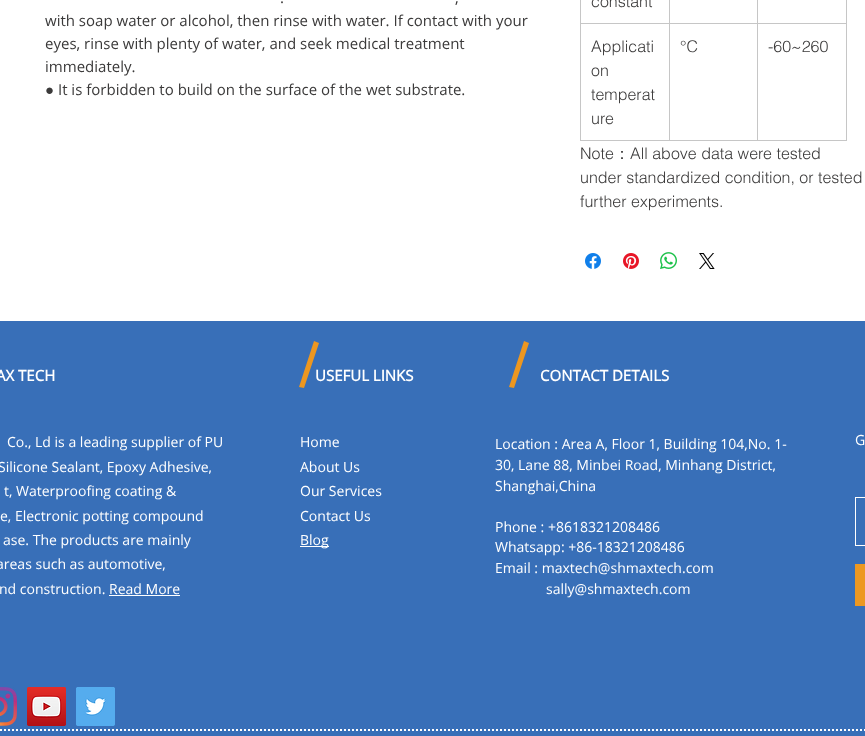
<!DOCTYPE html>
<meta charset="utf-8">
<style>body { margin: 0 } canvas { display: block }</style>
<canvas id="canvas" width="865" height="736"></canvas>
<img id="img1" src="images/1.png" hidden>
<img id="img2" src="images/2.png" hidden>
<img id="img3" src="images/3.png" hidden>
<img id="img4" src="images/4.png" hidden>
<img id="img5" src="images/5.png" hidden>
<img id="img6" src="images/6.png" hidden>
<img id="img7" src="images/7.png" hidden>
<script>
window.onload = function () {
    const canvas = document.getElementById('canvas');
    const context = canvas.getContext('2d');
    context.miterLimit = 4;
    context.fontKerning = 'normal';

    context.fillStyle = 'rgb(255, 255, 255)';
    context.fillRect(0, 0, 865, 736);
    context.fillStyle = 'rgb(198, 198, 198)';
    context.fillRect(757, 23, 90, 1);
    context.fillRect(846, 0, 1, 141);
    context.fillRect(757, 140, 90, 1);
    context.fillRect(757, 23, 1, 118);
    context.fillRect(669, 23, 89, 1);
    context.fillRect(669, 140, 89, 1);
    context.fillRect(669, 23, 1, 118);
    context.fillRect(580, 23, 90, 1);
    context.fillRect(669, 0, 1, 24);
    context.fillRect(757, 0, 1, 24);
    context.fillRect(580, 140, 90, 1);
    context.fillRect(580, 0, 1, 141);
    context.drawImage(document.getElementById('img1'), 585, 253, 16, 16);
    context.drawImage(document.getElementById('img2'), 623, 253, 16, 16);
    context.drawImage(document.getElementById('img3'), 660, 252, 17, 17);
    context.drawImage(document.getElementById('img4'), 699, 253, 16, 16);
    context.fillStyle = 'rgb(56, 111, 184)';
    context.fillRect(0, 321, 865, 415);
    context.fillStyle = 'rgb(237, 151, 32)';
    context.beginPath();
    context.moveTo(529, 343);
    context.lineTo(514, 388);
    context.lineTo(509, 387);
    context.lineTo(524, 341);
    context.closePath();
    context.fill();
    context.fillStyle = 'rgb(255, 255, 255)';
    context.fillRect(109, 595, 71, 1);
    context.fillRect(300, 546, 29, 1);
    context.strokeStyle = 'rgb(255, 255, 255)';
    context.strokeRect(855.5, 497.5, 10, 48);
    context.fillStyle = 'rgb(237, 152, 33)';
    context.fillRect(855, 564, 10, 42);
    context.drawImage(document.getElementById('img5'), 0, 687, 17, 39);
    context.drawImage(document.getElementById('img6'), 27, 687, 39, 39);
    context.drawImage(document.getElementById('img7'), 76, 687, 39, 39);
    context.beginPath();
    context.moveTo(-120, 730);
    context.lineTo(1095, 730);
    context.lineWidth = 2;
    context.setLineDash([2, 2]);
    context.stroke();
    context.font = '15px Open Sans';
    context.fillStyle = 'rgb(59, 58, 58)';
    context.fillText('.', 280, 3);
    context.fillText(',', 455, 3);
    context.fillText('with soap water or alcohol, then rinse with water. If contact with your', 45, 26);
    context.fillText('eyes, rinse with plenty of water, and seek medical treatment', 45, 49);
    context.fillText('immediately.', 45, 72);
    context.font = '15px Liberation Serif';
    context.fillText('●', 45, 95);
    context.font = '15px Open Sans';
    context.fillText('It is forbidden to build on the surface of the wet substrate.', 58, 95);
    context.font = '300 16px helvetica';
    context.fillText('constant', 591, 7);
    context.fillText('Applicati', 591, 52);
    context.fillText('on', 591, 76);
    context.fillText('temperat', 591, 100);
    context.fillText('ure', 591, 124);
    context.fillText('°C', 680, 52);
    context.fillText('-60~260', 768, 52);
    context.fillText('Note', 580, 159);
    context.font = '500 16px WenQuanYi Zen Hei';
    context.fillText('：', 614, 159);
    context.font = '300 16px helvetica';
    context.fillText('All above data were tested', 630, 159);
    context.fillText('under standardized condition, or tested', 580, 183);
    context.fillText('further experiments.', 580, 207);
    context.font = 'bold 15px Open Sans';
    context.fillStyle = 'rgb(255, 255, 255)';
    context.fillText('AX TECH', -4, 381);
    context.fillText('USEFUL LINKS', 315, 381);
    context.fillStyle = 'rgb(237, 151, 32)';
    context.beginPath();
    context.moveTo(319, 343);
    context.lineTo(304, 388);
    context.lineTo(299, 387);
    context.lineTo(314, 341);
    context.closePath();
    context.fill();
    context.fillStyle = 'rgb(255, 255, 255)';
    context.fillText('CONTACT DETAILS', 540, 381);
    context.font = '14px Open Sans';
    context.fillText('Co., Ld is a leading supplier of PU', 7, 447);
    context.fillText('Silicone Sealant, Epoxy Adhesive,', -2, 472);
    context.fillText('t, Waterproofing coating &', 4, 496);
    context.fillText('e, Electronic potting compound', 0, 521);
    context.fillText('ase. The products are mainly', 3, 545);
    context.fillText('areas such as automotive,', -4, 569);
    context.fillText('nd construction. Read More', -1, 594);
    context.fillText('Home', 300, 447);
    context.fillText('About Us', 300, 472);
    context.fillText('Our Services', 300, 496);
    context.fillText('Contact Us', 300, 521);
    context.fillText('Blog', 300, 545);
    context.fillText('Location : Area A, Floor 1, Building 104,No. 1-', 495, 449);
    context.fillText('30, Lane 88, Minbei Road, Minhang District,', 495, 470);
    context.fillText('Shanghai,China', 495, 491);
    context.fillText('Phone : +8618321208486', 495, 532);
    context.fillText('Whatsapp: +86-18321208486', 495, 552);
    context.fillText('Email : maxtech@shmaxtech.com', 495, 573);
    context.fillText('sally@shmaxtech.com', 546, 594);
    context.fillText('G', 855, 445);
};
</script>
